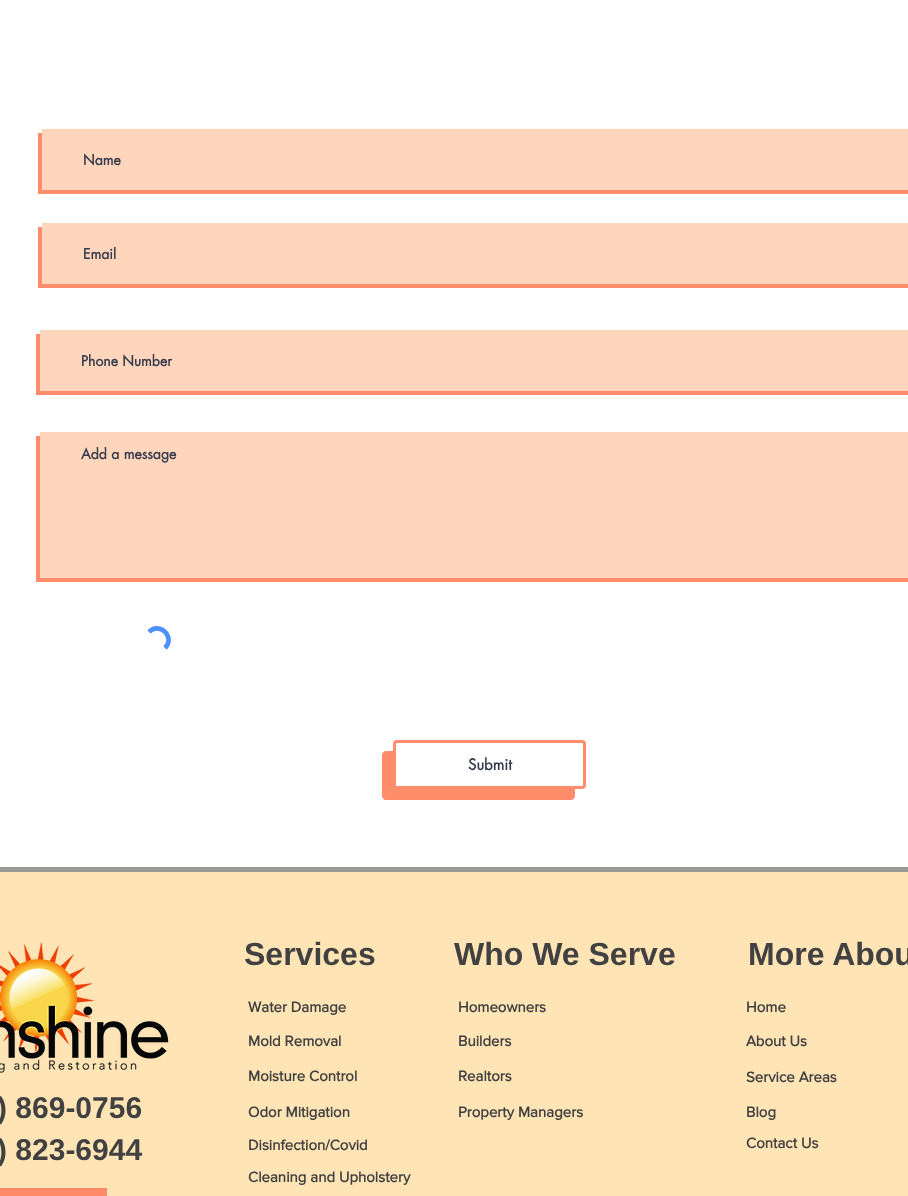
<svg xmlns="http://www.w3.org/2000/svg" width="908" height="1196">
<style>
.a{font:bold 14px futura;fill:#373b4d}
.b{font:bold 15px futura;fill:#373b4d}
.c{font:bold 32px Liberation Sans;fill:#414141}
.d{font:bold 15px 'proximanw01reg';fill:#414141}
.e{font:bold 30px Liberation Sans;fill:#414141}
</style>
<rect width="100%" height="100%" fill="#fff"/>
<path fill="#ff8c6b" d="M38 133v61h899v-4h-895v-57z"/>
<path fill="#ffd5bb" d="M42 129h866v61H42z"/>
<path fill="#ff8c6b" d="M38 227v61h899v-4h-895v-57z"/>
<path fill="#ffd5bb" d="M42 223h866v61H42z"/>
<path fill="#ff8c6b" d="M36 334v61h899v-4h-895v-57z"/>
<path fill="#ffd5bb" d="M40 330h868v61H40z"/>
<path fill="#ff8c6b" d="M36 436v146h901v-4h-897v-142z"/>
<path fill="#ffd5bb" d="M40 432h868v146H40z"/>
<path fill="none" stroke="#4d90fe" stroke-width="4.6" d="M149 632c10.5-11 27 5.5 16 16"/>
<path fill="#ff8c6b" d="M386 751c-2 0-4 2-4 4v41c0 2 2 4 4 4h185c2 0 4-2 4-4v-7h-178c-2 0-4-2-4-4v-34z"/>
<rect fill="#fff" stroke="#ff8c6b" stroke-width="3" x="394.5" y="741.5" width="190" height="46" rx="2.5"/>
<path fill="#ffe4b5" d="M0 872h908v324H0z"/>
<path fill="#999997" d="M0 867h908v5H0z"/>
<image href="1.png" x="0" y="942" width="169" height="131"/>
<path fill="#ff8a6a" d="M0 1188h107v8H0z"/>
<text class="a" x="83" y="165">Name</text>
<text class="a" x="83" y="259">Email</text>
<text class="a" x="81" y="366">Phone Number</text>
<text class="a" x="81" y="459">Add a message</text>
<text class="b" x="468" y="770">Submit</text>
<text class="c" x="244" y="965">Services</text>
<text class="c" x="454" y="965">Who We Serve</text>
<text class="c" x="748" y="965">More Abou</text>
<text class="d" x="248" y="1012">Water Damage</text>
<text class="d" x="458" y="1012">Homeowners</text>
<text class="d" x="746" y="1012">Home</text>
<text class="d" x="248" y="1046">Mold Removal</text>
<text class="d" x="458" y="1046">Builders</text>
<text class="d" x="746" y="1046">About Us</text>
<text class="d" x="248" y="1081">Moisture Control</text>
<text class="d" x="458" y="1081">Realtors</text>
<text class="d" x="746" y="1082">Service Areas</text>
<text class="e" x="-3" y="1118">) 869-0756</text>
<text class="e" x="-3" y="1160">) 823-6944</text>
<text class="d" x="248" y="1117">Odor Mitigation</text>
<text class="d" x="458" y="1117">Property Managers</text>
<text class="d" x="746" y="1117">Blog</text>
<text class="d" x="248" y="1150">Disinfection/Covid</text>
<text class="d" x="746" y="1148">Contact Us</text>
<text class="d" x="248" y="1182">Cleaning and Upholstery</text>
</svg>
